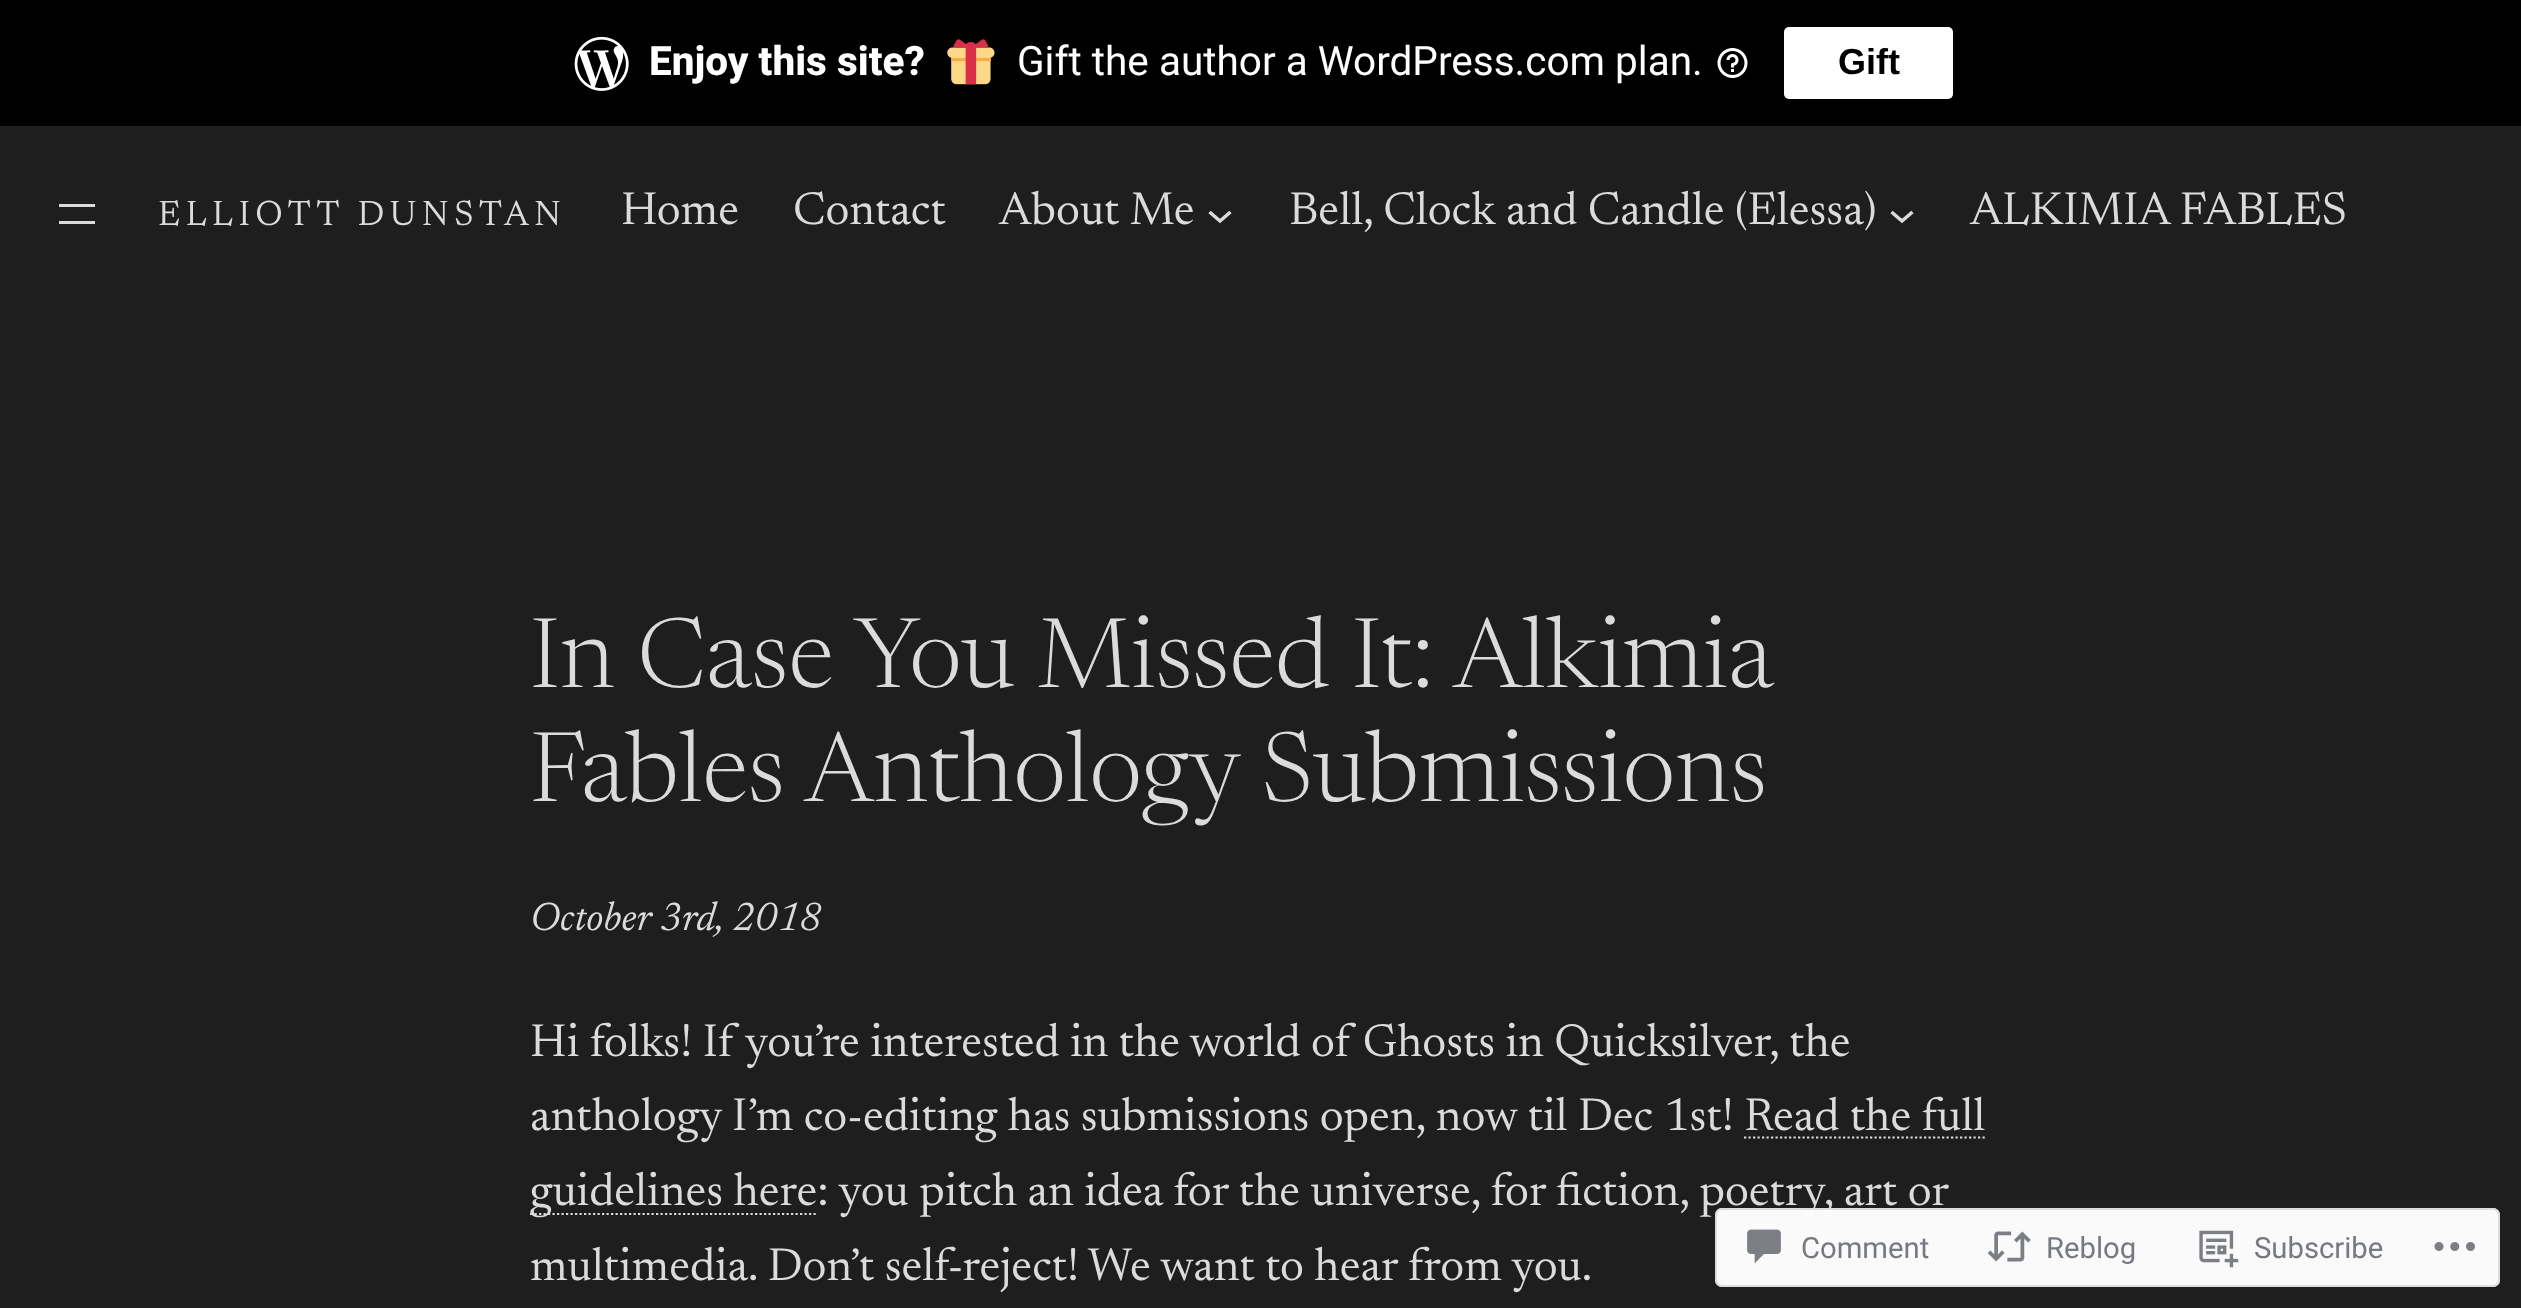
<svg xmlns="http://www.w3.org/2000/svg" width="2521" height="1308">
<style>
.a{font:800 40.5px Roboto;fill:#fff}
.b{font:40.5px Roboto;fill:#fff}
.c{font:bold 36px Liberation Sans;fill:#000}
.d{font:36px Newsreader;letter-spacing:5.4px;fill:#dbdbdb}
.e{font:46.8px 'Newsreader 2';fill:#dbdbdb}
.f{font:300 99px Newsreader;fill:#dbdbdb}
.g{font:italic 40.5px Newsreader;fill:#dbdbdb}
.h{font:29.25px Roboto;fill:#767a80}
</style>
<rect width="100%" height="100%" fill="#1e1e1e"/>
<path fill="#000" d="M0 0h2521v126H0z"/>
<image href="1.png" x="574" y="36" width="55" height="55"/>
<image href="2.png" x="947" y="39" width="48" height="46"/>
<image href="3.png" x="1717" y="48" width="31" height="30"/>
<rect fill="#fff" x="1784" y="27" width="169" height="72" rx="5"/>
<path fill="#dbdbdb" d="M59 204h36v3H59z"/>
<path fill="#dbdbdb" d="M59 221h36v3H59z"/>
<path fill="none" stroke="#dbdbdb" stroke-width="3.5" d="M1209.5 212l10.5 9l10.5-9"/>
<path fill="none" stroke="#dbdbdb" stroke-width="3.5" d="M1891.5 212l10.5 9l10.5-9"/>
<path fill="none" stroke="#dbdbdb" stroke-width="2.2" stroke-dasharray="2.25 2.25" d="M1744 1137.5h241"/>
<path fill="none" stroke="#dbdbdb" stroke-width="2.2" stroke-dasharray="2.25 2.25" d="M530 1214h287"/>
<text class="a" x="649" y="75">Enjoy this site?</text>
<text class="b" x="1017" y="75">Gift the author a WordPress.com plan.</text>
<text class="c" x="1838" y="74">Gift</text>
<text class="d" x="158" y="225">ELLIOTT DUNSTAN</text>
<text class="e" x="621" y="224">Home</text>
<text class="e" x="793" y="224">Contact</text>
<text class="e" x="999" y="224">About Me</text>
<text class="e" x="1289" y="224">Bell, Clock and Candle (Elessa)</text>
<text class="e" x="1970" y="224">ALKIMIA FABLES</text>
<text class="f" x="530" y="687" word-spacing="-0.25">In Case You Missed It: Alkimia</text>
<text class="f" x="530" y="801">Fables Anthology Submissions</text>
<text class="g" x="530" y="930">October 3rd, 2018</text>
<text class="e" x="530" y="1056">Hi folks! If you’re interested in the world of Ghosts in Quicksilver, the</text>
<text class="e" x="530" y="1130">anthology I’m co-editing has submissions open, now til Dec 1st! Read the full</text>
<text class="e" x="530" y="1205">guidelines here: you pitch an idea for the universe, for fiction, poetry, art or</text>
<text class="e" x="530" y="1280">multimedia. Don’t self-reject! We want to hear from you.</text>
<rect fill="#fffffffa" x="1715" y="1208" width="785" height="79" rx="7"/>
<rect fill="none" stroke="#dcdcdefa" stroke-width="2" x="1716" y="1209" width="783" height="77" rx="6"/>
<image href="4.png" x="1747" y="1229" width="34" height="35"/>
<text class="h" x="1801" y="1258">Comment</text>
<image href="5.png" x="1987" y="1231" width="44" height="31"/>
<text class="h" x="2046" y="1258">Reblog</text>
<image href="6.png" x="2199" y="1230" width="40" height="38"/>
<text class="h" x="2254" y="1258">Subscribe</text>
<image href="7.png" x="2434" y="1242" width="41" height="9"/>
</svg>
